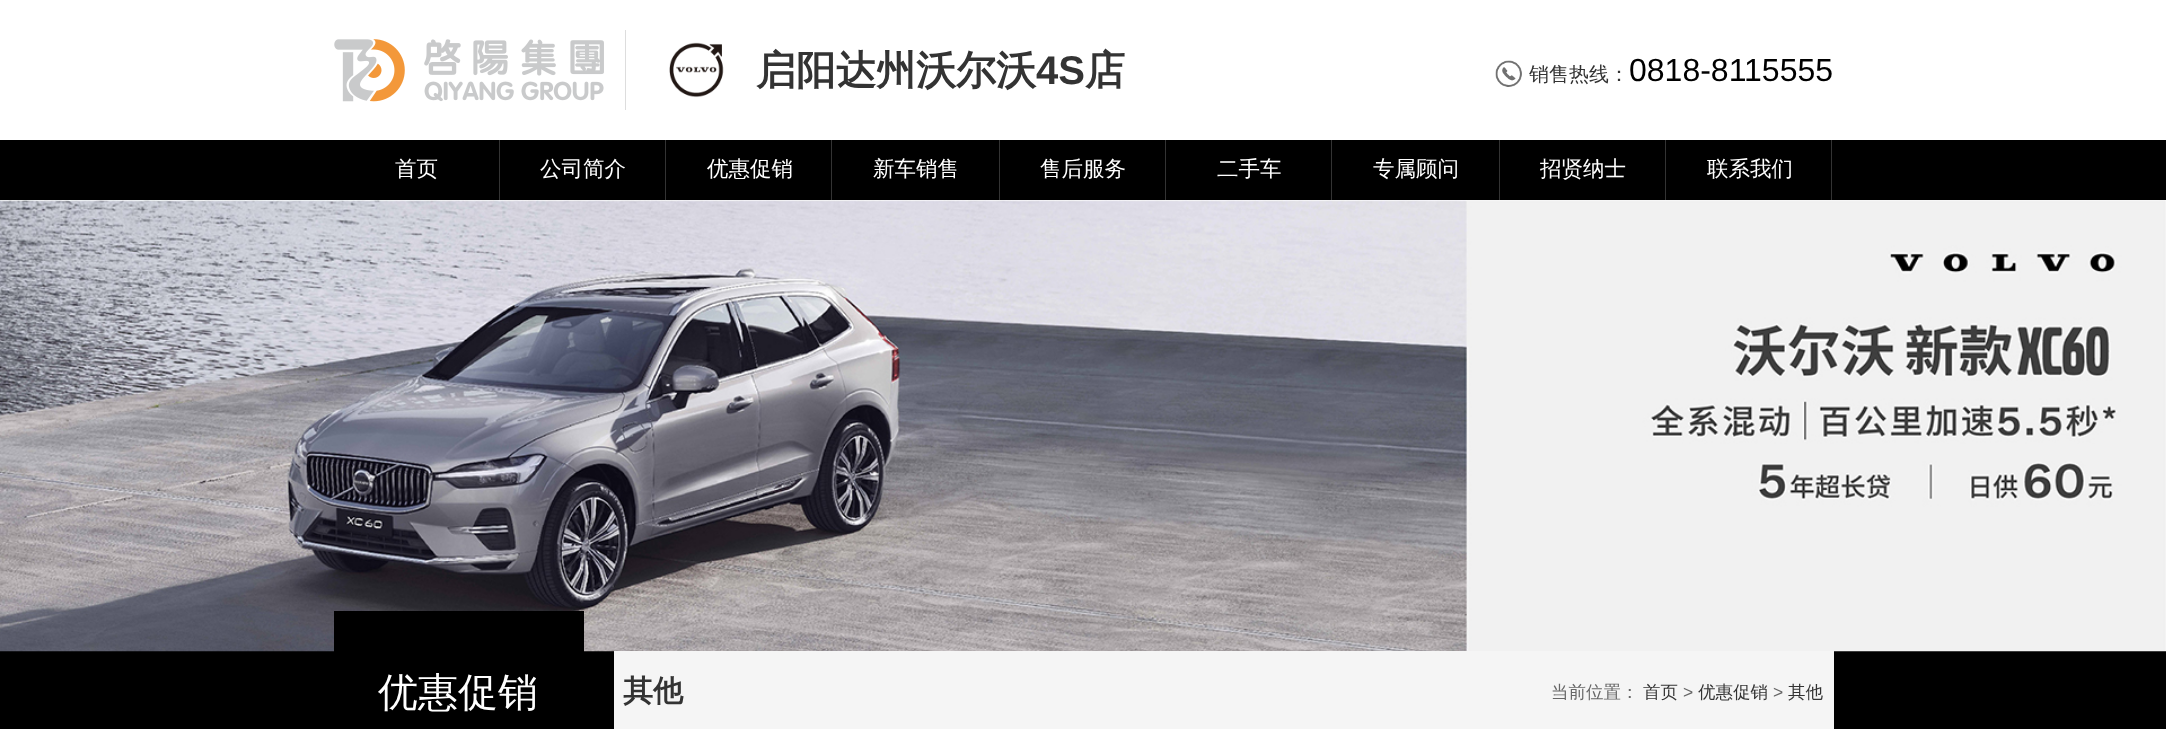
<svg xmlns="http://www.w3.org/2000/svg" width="2166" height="729">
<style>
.a{font:bold 40px WenQuanYi Zen Hei;fill:#333}
.b{font:bold 40px Liberation Sans;fill:#333}
.c{font:500 20px WenQuanYi Zen Hei;fill:#333}
.d{font:32px Liberation Sans;fill:#000}
.e{font:500 21.5px WenQuanYi Zen Hei;fill:#fff}
.f{font:500 40px WenQuanYi Zen Hei;fill:#fff}
.g{font:bold 30px WenQuanYi Zen Hei;fill:#333}
.h{font:500 17.5px WenQuanYi Zen Hei;fill:#666}
.i{font:500 17.5px WenQuanYi Zen Hei;fill:#333}
.j{font:17.5px Liberation Sans;fill:#666}
</style>
<rect width="100%" height="100%" fill="#000"/>
<path fill="#fff" d="M0 0h2166v140H0z"/>
<image href="1.png" x="334" y="39" width="270" height="63"/>
<path fill="#ddd" d="M625 30h1v80H625z"/>
<image href="2.png" x="669" y="42" width="55" height="56"/>
<image href="3.png" x="1495" y="60" width="27" height="27"/>
<path fill="#333" d="M499 140h1v60H499z"/>
<path fill="#333" d="M665 140h1v60H665z"/>
<path fill="#333" d="M831 140h1v60H831z"/>
<path fill="#333" d="M999 140h1v60H999z"/>
<path fill="#333" d="M1165 140h1v60H1165z"/>
<path fill="#333" d="M1331 140h1v60H1331z"/>
<path fill="#333" d="M1499 140h1v60H1499z"/>
<path fill="#333" d="M1665 140h1v60H1665z"/>
<path fill="#333" d="M1831 140h1v60H1831z"/>
<image href="4.png" x="0" y="200" width="2166" height="452"/>
<path fill="#000" d="M334 611h250v41H334z"/>
<path fill="#f5f5f5" d="M614 651h1220v78H614z"/>
<text class="a" x="756" y="84">启阳达州沃尔沃</text>
<text class="b" x="1036" y="84">4S</text>
<text class="a" x="1085" y="84">店</text>
<text class="c" x="1529" y="81">销售热线：</text>
<text class="d" x="1629" y="81">0818-8115555</text>
<text class="e" x="395" y="176">首页</text>
<text class="e" x="540" y="176">公司简介</text>
<text class="e" x="707" y="176">优惠促销</text>
<text class="e" x="873" y="176">新车销售</text>
<text class="e" x="1040" y="176">售后服务</text>
<text class="e" x="1217" y="176">二手车</text>
<text class="e" x="1373" y="176">专属顾问</text>
<text class="e" x="1540" y="176">招贤纳士</text>
<text class="e" x="1707" y="176">联系我们</text>
<text class="f" x="378" y="706">优惠促销</text>
<text class="g" x="623" y="701">其他</text>
<text class="h" x="1551" y="698">当前位置：</text>
<text class="i" x="1643" y="698">首页</text>
<text class="j" x="1683" y="698">&gt;</text>
<text class="i" x="1698" y="698">优惠促销</text>
<text class="j" x="1773" y="698">&gt;</text>
<text class="i" x="1788" y="698">其他</text>
</svg>
